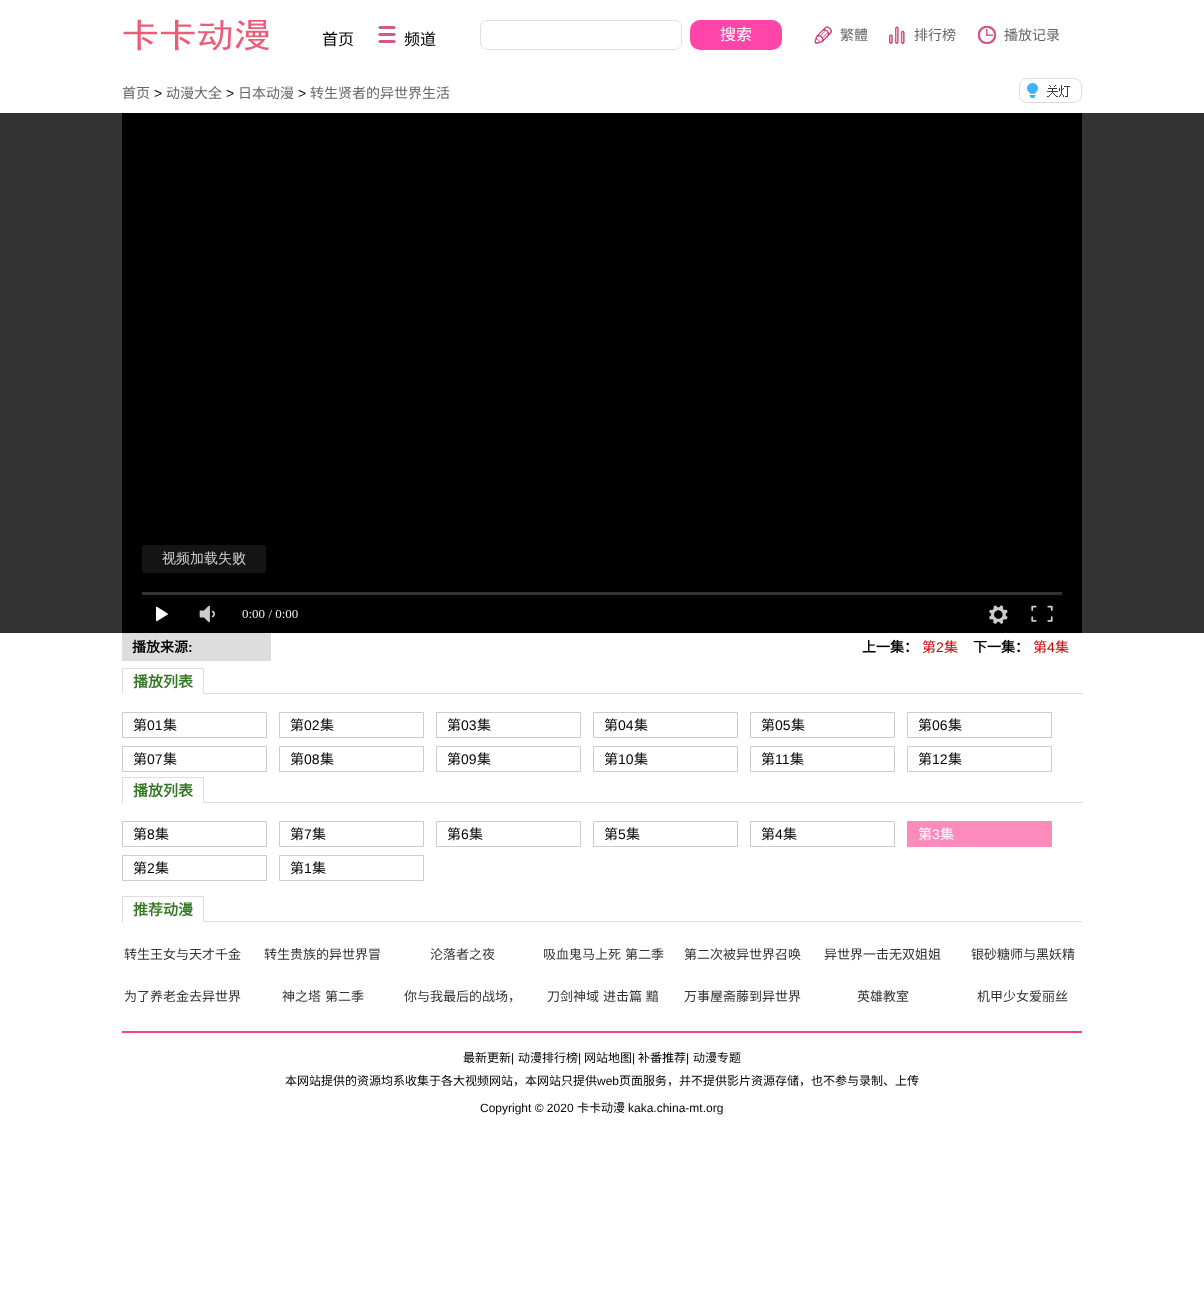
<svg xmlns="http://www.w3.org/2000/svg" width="1204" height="1313">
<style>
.a{font:16px Noto Sans CJK SC;fill:#000}
.b{font:16px Noto Sans CJK SC;fill:#fff}
.c{font:14px Noto Sans CJK SC;fill:#666}
.d{font:14px Liberation Sans;fill:#000}
.e{font:bold 14px Noto Sans CJK SC;fill:#000}
.f{font:bold 14px Liberation Sans;fill:#000}
.g{font:14px Noto Sans CJK SC;fill:#c00}
.h{font:14px Liberation Sans;fill:#c00}
.i{font:bold 15px Noto Sans CJK SC;fill:#372}
.j{font:14px Noto Sans CJK SC;fill:#000}
.k{font:14px Noto Sans CJK SC;fill:#fff}
.l{font:14px Liberation Sans;fill:#fff}
.m{font:13px Noto Sans CJK SC;fill:#333}
.n{font:12px Noto Sans CJK SC;fill:#000}
.o{font:12px Liberation Sans;fill:#000}
</style>
<rect width="100%" height="100%" fill="#fff"/>
<image href="1.png" x="123" y="19" width="146" height="32"/>
<image href="2.png" x="378" y="26" width="18" height="17"/>
<rect fill="none" stroke="#e0e0e0" x="480.5" y="20.5" width="201" height="29" rx="6.5"/>
<rect fill="#f4a" x="690" y="20" width="92" height="30" rx="10"/>
<image href="3.png" x="814" y="26" width="18" height="18"/>
<image href="4.png" x="889" y="26" width="16" height="18"/>
<image href="5.png" x="978" y="26" width="18" height="18"/>
<rect fill="none" stroke="#ddd" x="1019.5" y="78.5" width="62" height="24" rx="7.5"/>
<image href="6.png" x="1027" y="83" width="43" height="15"/>
<path fill="#333" d="M0 113h1204v520H0z"/>
<path fill="#000" d="M122 113h960v520H122z"/>
<image href="7.png" x="142" y="545" width="920" height="79"/>
<path fill="#ddd" d="M122 633h149v28H122z"/>
<path fill="#ddd" d="M204 693h878v1H204z"/>
<path fill="#ddd" d="M122 668h82v1H122z"/>
<path fill="#ddd" d="M203 668h1v26H203z"/>
<path fill="#ddd" d="M122 668h1v26H122z"/>
<path fill="none" stroke="#ccc" d="M122.5 712.5h144v25H122.5z"/>
<path fill="none" stroke="#ccc" d="M279.5 712.5h144v25H279.5z"/>
<path fill="none" stroke="#ccc" d="M436.5 712.5h144v25H436.5z"/>
<path fill="none" stroke="#ccc" d="M593.5 712.5h144v25H593.5z"/>
<path fill="none" stroke="#ccc" d="M750.5 712.5h144v25H750.5z"/>
<path fill="none" stroke="#ccc" d="M907.5 712.5h144v25H907.5z"/>
<path fill="none" stroke="#ccc" d="M122.5 746.5h144v25H122.5z"/>
<path fill="none" stroke="#ccc" d="M279.5 746.5h144v25H279.5z"/>
<path fill="none" stroke="#ccc" d="M436.5 746.5h144v25H436.5z"/>
<path fill="none" stroke="#ccc" d="M593.5 746.5h144v25H593.5z"/>
<path fill="none" stroke="#ccc" d="M750.5 746.5h144v25H750.5z"/>
<path fill="none" stroke="#ccc" d="M907.5 746.5h144v25H907.5z"/>
<path fill="#ddd" d="M204 802h878v1H204z"/>
<path fill="#ddd" d="M122 777h82v1H122z"/>
<path fill="#ddd" d="M203 777h1v26H203z"/>
<path fill="#ddd" d="M122 777h1v26H122z"/>
<path fill="none" stroke="#ccc" d="M122.5 821.5h144v25H122.5z"/>
<path fill="none" stroke="#ccc" d="M279.5 821.5h144v25H279.5z"/>
<path fill="none" stroke="#ccc" d="M436.5 821.5h144v25H436.5z"/>
<path fill="none" stroke="#ccc" d="M593.5 821.5h144v25H593.5z"/>
<path fill="none" stroke="#ccc" d="M750.5 821.5h144v25H750.5z"/>
<path fill="#fc8bbb" d="M907 821h145v26H907z"/>
<path fill="none" stroke="#ccc" d="M122.5 855.5h144v25H122.5z"/>
<path fill="none" stroke="#ccc" d="M279.5 855.5h144v25H279.5z"/>
<path fill="#ddd" d="M204 921h878v1H204z"/>
<path fill="#ddd" d="M122 896h82v1H122z"/>
<path fill="#ddd" d="M203 896h1v26H203z"/>
<path fill="#ddd" d="M122 896h1v26H122z"/>
<path fill="#fa3d8d" d="M122 1031h960v2H122z"/>
<text class="a" x="322" y="45">首页</text>
<text class="a" x="404" y="45">频道</text>
<text class="b" x="720" y="40">搜索</text>
<text class="c" x="840" y="40">繁體</text>
<text class="c" x="914" y="40">排行榜</text>
<text class="c" x="1004" y="40">播放记录</text>
<text class="c" x="122" y="98">首页</text>
<text class="d" x="154" y="98">&gt;</text>
<text class="c" x="166" y="98">动漫大全</text>
<text class="d" x="226" y="98">&gt;</text>
<text class="c" x="238" y="98">日本动漫</text>
<text class="d" x="298" y="98">&gt;</text>
<text class="c" x="310" y="98">转生贤者的异世界生活</text>
<text class="e" x="132" y="652">播放来源</text>
<text class="f" x="188" y="652">:</text>
<text class="e" x="862" y="652">上一集：</text>
<text class="g" x="922" y="652">第</text>
<text class="h" x="936" y="652">2</text>
<text class="g" x="944" y="652">集</text>
<text class="e" x="973" y="652">下一集：</text>
<text class="g" x="1033" y="652">第</text>
<text class="h" x="1047" y="652">4</text>
<text class="g" x="1055" y="652">集</text>
<text class="i" x="133" y="687">播放列表</text>
<text class="j" x="133" y="730">第</text>
<text class="d" x="147" y="730">01</text>
<text class="j" x="163" y="730">集</text>
<text class="j" x="290" y="730">第</text>
<text class="d" x="304" y="730">02</text>
<text class="j" x="320" y="730">集</text>
<text class="j" x="447" y="730">第</text>
<text class="d" x="461" y="730">03</text>
<text class="j" x="477" y="730">集</text>
<text class="j" x="604" y="730">第</text>
<text class="d" x="618" y="730">04</text>
<text class="j" x="634" y="730">集</text>
<text class="j" x="761" y="730">第</text>
<text class="d" x="775" y="730">05</text>
<text class="j" x="791" y="730">集</text>
<text class="j" x="918" y="730">第</text>
<text class="d" x="932" y="730">06</text>
<text class="j" x="948" y="730">集</text>
<text class="j" x="133" y="764">第</text>
<text class="d" x="147" y="764">07</text>
<text class="j" x="163" y="764">集</text>
<text class="j" x="290" y="764">第</text>
<text class="d" x="304" y="764">08</text>
<text class="j" x="320" y="764">集</text>
<text class="j" x="447" y="764">第</text>
<text class="d" x="461" y="764">09</text>
<text class="j" x="477" y="764">集</text>
<text class="j" x="604" y="764">第</text>
<text class="d" x="618" y="764">10</text>
<text class="j" x="634" y="764">集</text>
<text class="j" x="761" y="764">第</text>
<text class="d" x="775" y="764">11</text>
<text class="j" x="790" y="764">集</text>
<text class="j" x="918" y="764">第</text>
<text class="d" x="932" y="764">12</text>
<text class="j" x="948" y="764">集</text>
<text class="i" x="133" y="796">播放列表</text>
<text class="j" x="133" y="839">第</text>
<text class="d" x="147" y="839">8</text>
<text class="j" x="155" y="839">集</text>
<text class="j" x="290" y="839">第</text>
<text class="d" x="304" y="839">7</text>
<text class="j" x="312" y="839">集</text>
<text class="j" x="447" y="839">第</text>
<text class="d" x="461" y="839">6</text>
<text class="j" x="469" y="839">集</text>
<text class="j" x="604" y="839">第</text>
<text class="d" x="618" y="839">5</text>
<text class="j" x="626" y="839">集</text>
<text class="j" x="761" y="839">第</text>
<text class="d" x="775" y="839">4</text>
<text class="j" x="783" y="839">集</text>
<text class="k" x="918" y="839">第</text>
<text class="l" x="932" y="839">3</text>
<text class="k" x="940" y="839">集</text>
<text class="j" x="133" y="873">第</text>
<text class="d" x="147" y="873">2</text>
<text class="j" x="155" y="873">集</text>
<text class="j" x="290" y="873">第</text>
<text class="d" x="304" y="873">1</text>
<text class="j" x="312" y="873">集</text>
<text class="i" x="133" y="915">推荐动漫</text>
<text class="m" x="124" y="959">转生王女与天才千金</text>
<text class="m" x="264" y="959">转生贵族的异世界冒</text>
<text class="m" x="430" y="959">沦落者之夜</text>
<text class="m" x="543" y="959" word-spacing="1">吸血鬼马上死 第二季</text>
<text class="m" x="684" y="959">第二次被异世界召唤</text>
<text class="m" x="824" y="959">异世界一击无双姐姐</text>
<text class="m" x="971" y="959">银砂糖师与黑妖精</text>
<text class="m" x="124" y="1001">为了养老金去异世界</text>
<text class="m" x="282" y="1001" word-spacing="1">神之塔 第二季</text>
<text class="m" x="404" y="1001">你与我最后的战场，</text>
<text class="m" x="547" y="1001" word-spacing="1">刀剑神域 进击篇 黯</text>
<text class="m" x="684" y="1001">万事屋斋藤到异世界</text>
<text class="m" x="857" y="1001">英雄教室</text>
<text class="m" x="977" y="1001">机甲少女爱丽丝</text>
<text class="n" x="463" y="1062">最新更新</text>
<text class="o" x="511" y="1062">|</text>
<text class="n" x="518" y="1062">动漫排行榜</text>
<text class="o" x="578" y="1062">|</text>
<text class="n" x="584" y="1062">网站地图</text>
<text class="o" x="632" y="1062">|</text>
<text class="n" x="638" y="1062">补番推荐</text>
<text class="o" x="686" y="1062">|</text>
<text class="n" x="693" y="1062">动漫专题</text>
<text class="n" x="285" y="1085">本网站提供的资源均系收集于各大视频网站，本网站只提供</text>
<text class="o" x="597" y="1085">web</text>
<text class="n" x="619" y="1085">页面服务，并不提供影片资源存储，也不参与录制、上传</text>
<text class="o" x="480" y="1112">Copyright © 2020</text>
<text class="n" x="577" y="1112">卡卡动漫</text>
<text class="o" x="628" y="1112">kaka.china-mt.org</text>
</svg>
